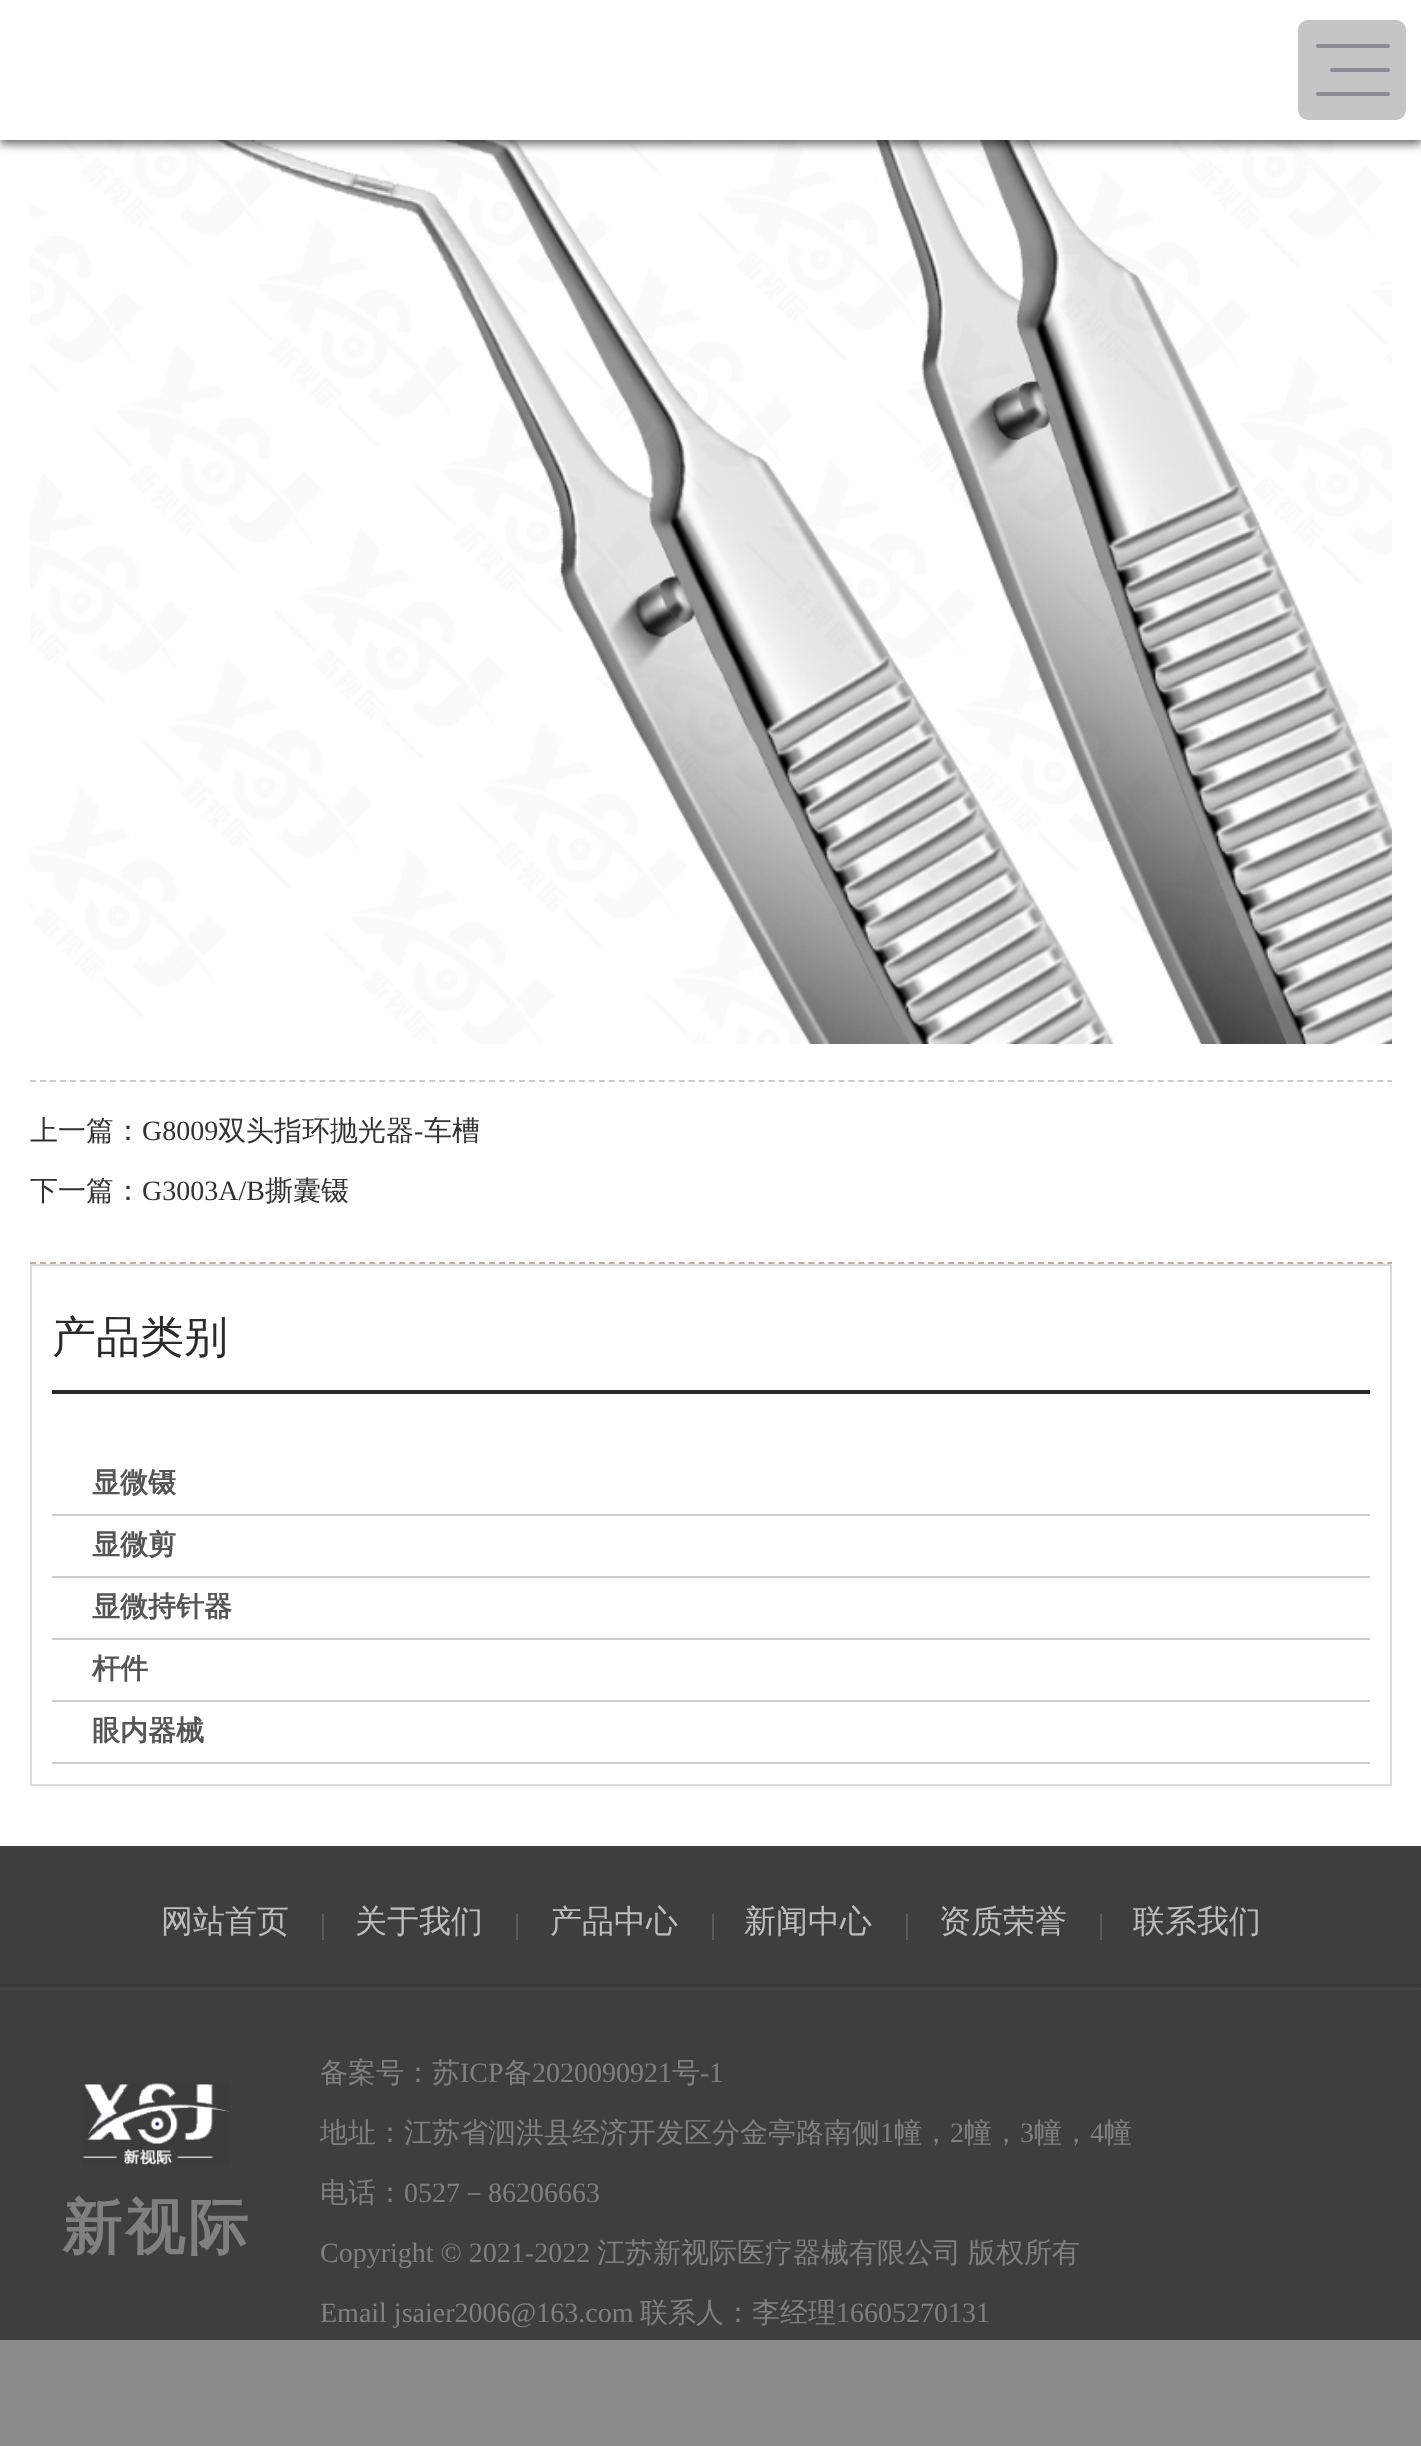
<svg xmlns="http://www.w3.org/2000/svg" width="1421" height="2446">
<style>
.a{font:500 28px WenQuanYi Zen Hei;fill:#333}
.b{font:28px Liberation Serif;fill:#333}
.c{font:500 44px WenQuanYi Zen Hei;fill:#2a2a2a}
.d{font:bold 28px WenQuanYi Zen Hei;fill:#555}
.e{font:500 32px WenQuanYi Zen Hei;fill:#bdbdbd}
.f{font:bold 60px WenQuanYi Zen Hei;letter-spacing:3px;fill:#808080}
.g{font:500 28px WenQuanYi Zen Hei;fill:#808080}
.h{font:28px Liberation Serif;fill:#808080}
</style>
<rect width="100%" height="100%" fill="#fff"/>
<image href="1.png" x="30" y="140" width="1362" height="904"/>
<path fill="#00000099" filter="blur(5px)" d="M0 4h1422v140H0z"/>
<path fill="#fff" d="M0 0h1421v140H0z"/>
<rect fill="#c5c5c5" x="1298" y="20" width="108" height="100" rx="10"/>
<rect fill="#8a8a93" x="1316" y="44" width="74" height="4" rx="2"/>
<rect fill="#8a8a93" x="1330" y="68" width="60" height="4" rx="2"/>
<rect fill="#8a8a93" x="1316" y="92" width="74" height="4" rx="2"/>
<path fill="none" stroke="#ccc" stroke-width="2" stroke-dasharray="6 3.98" d="M30 1081h1362"/>
<path fill="none" stroke="#c2a9a4" stroke-width="2" stroke-dasharray="6 3.98" d="M30 1263h1362"/>
<path fill="none" stroke="#dbdbdb" stroke-width="2" d="M31 1265h1360v520H31z"/>
<path fill="#2a2a2a" d="M52 1390h1318v4H52z"/>
<path fill="#ccc" d="M52 1514h1318v2H52z"/>
<path fill="#ccc" d="M52 1576h1318v2H52z"/>
<path fill="#ccc" d="M52 1638h1318v2H52z"/>
<path fill="#ccc" d="M52 1700h1318v2H52z"/>
<path fill="#ccc" d="M52 1762h1318v2H52z"/>
<path fill="#3e3e3e" d="M0 1846h1421v494H0z"/>
<image href="2.png" x="0" y="1984" width="1421" height="6"/>
<path fill="#5b5b5b" d="M322 1914h2v26H322z"/>
<path fill="#5b5b5b" d="M516 1914h2v26H516z"/>
<path fill="#5b5b5b" d="M712 1914h2v26H712z"/>
<path fill="#5b5b5b" d="M906 1914h2v26H906z"/>
<path fill="#5b5b5b" d="M1100 1914h2v26H1100z"/>
<image href="3.png" x="82" y="2083" width="148" height="82"/>
<path fill="#8a8a8a" d="M0 2340h1421v106H0z"/>
<text class="a" x="30" y="1140">上一篇：</text>
<text class="b" x="142" y="1140">G8009</text>
<text class="a" x="218" y="1140">双头指环抛光器</text>
<text class="b" x="414" y="1140">-</text>
<text class="a" x="424" y="1140">车槽</text>
<text class="a" x="30" y="1200">下一篇：</text>
<text class="b" x="142" y="1200">G3003A/B</text>
<text class="a" x="265" y="1200">撕囊镊</text>
<text class="c" x="52" y="1352">产品类别</text>
<text class="d" x="92" y="1492">显微镊</text>
<text class="d" x="92" y="1554">显微剪</text>
<text class="d" x="92" y="1616">显微持针器</text>
<text class="d" x="92" y="1678">杆件</text>
<text class="d" x="92" y="1740">眼内器械</text>
<text class="e" x="161" y="1932">网站首页</text>
<text class="e" x="355" y="1932">关于我们</text>
<text class="e" x="550" y="1932">产品中心</text>
<text class="e" x="744" y="1932">新闻中心</text>
<text class="e" x="939" y="1932">资质荣誉</text>
<text class="e" x="1133" y="1932">联系我们</text>
<text class="f" x="62" y="2248">新视际</text>
<text class="g" x="320" y="2082">备案号：苏</text>
<text class="h" x="460" y="2082">ICP</text>
<text class="g" x="504" y="2082">备</text>
<text class="h" x="532" y="2082">2020090921</text>
<text class="g" x="672" y="2082">号</text>
<text class="h" x="700" y="2082">-1</text>
<text class="g" x="320" y="2142">地址：江苏省泗洪县经济开发区分金亭路南侧</text>
<text class="h" x="880" y="2142">1</text>
<text class="g" x="894" y="2142">幢，</text>
<text class="h" x="950" y="2142">2</text>
<text class="g" x="964" y="2142">幢，</text>
<text class="h" x="1020" y="2142">3</text>
<text class="g" x="1034" y="2142">幢，</text>
<text class="h" x="1090" y="2142">4</text>
<text class="g" x="1104" y="2142">幢</text>
<text class="g" x="320" y="2202">电话：</text>
<text class="h" x="404" y="2202">0527</text>
<text class="g" x="460" y="2202">－</text>
<text class="h" x="488" y="2202">86206663</text>
<text class="h" x="320" y="2262">Copyright © 2021-2022</text>
<text class="g" x="597" y="2262">江苏新视际医疗器械有限公司</text>
<text class="g" x="968" y="2262">版权所有</text>
<text class="h" x="320" y="2322">Email jsaier2006@163.com</text>
<text class="g" x="640" y="2322">联系人：李经理</text>
<text class="h" x="836" y="2322">16605270131</text>
</svg>
